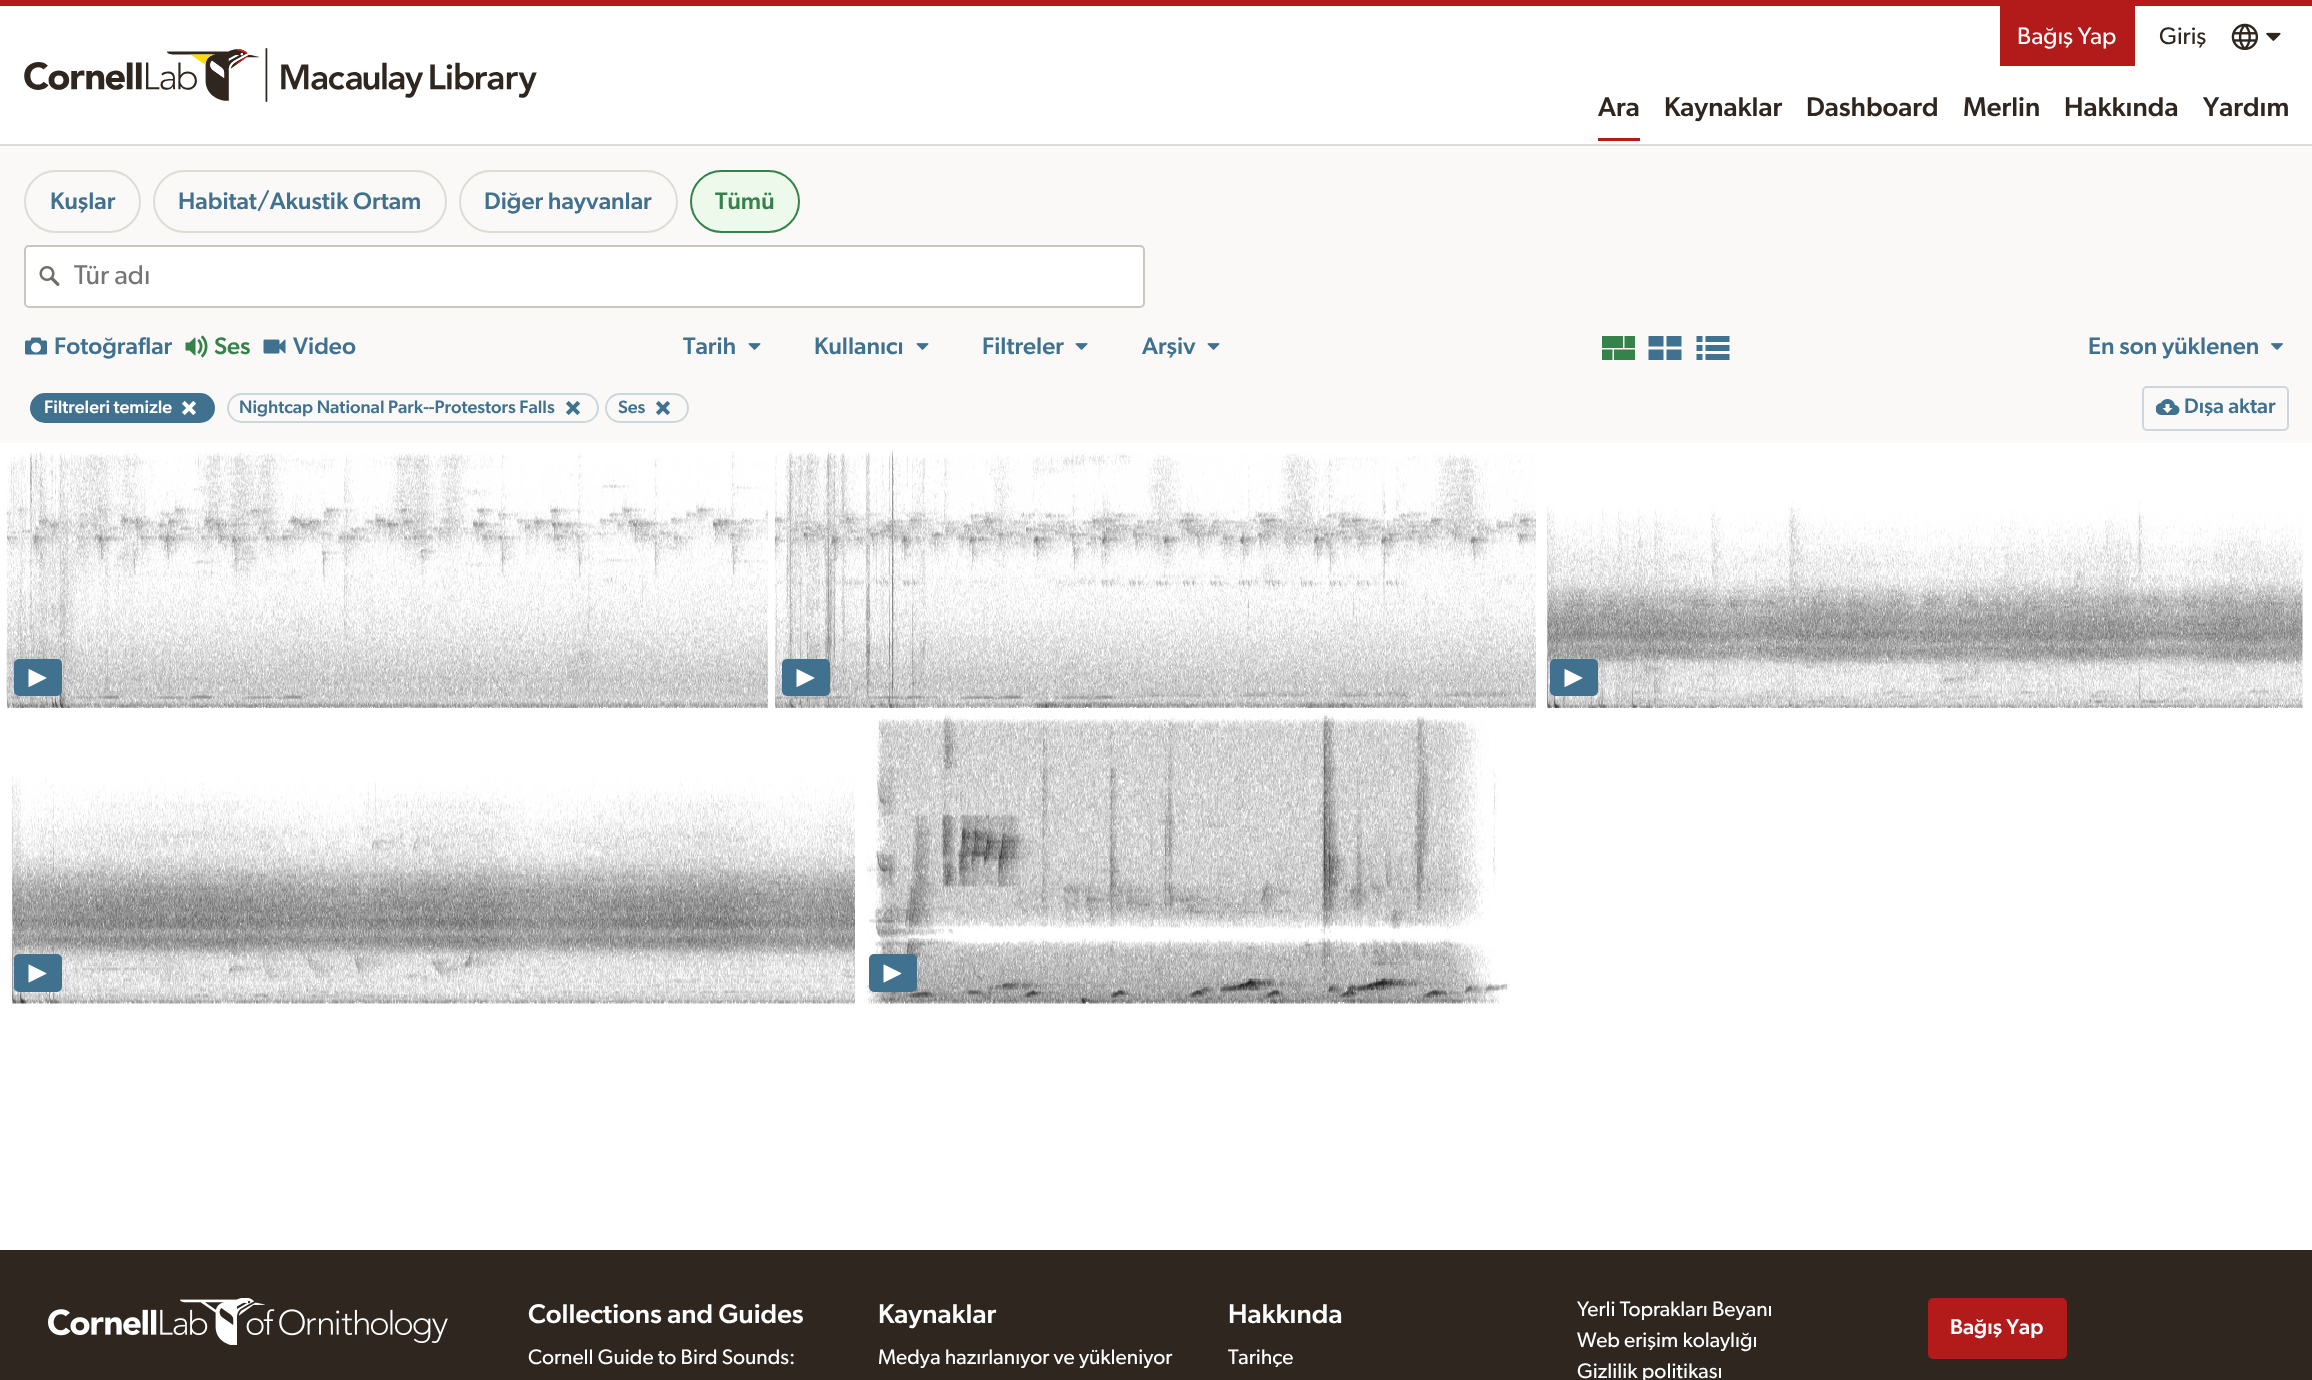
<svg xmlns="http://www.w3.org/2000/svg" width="2312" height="1380">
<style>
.a{font:24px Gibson;fill:#fff}
.b{font:24px Gibson;fill:#2e261f}
.c{font:500 27.1px Gibson;fill:#2e261f}
.d{font:500 24px Gibson;fill:#40718f}
.e{font:500 24px Gibson;fill:#36824b}
.f{font:27.1px Gibson;fill:#757575}
.g{font:500 18px Gibson;fill:#fff}
.h{font:500 18px Gibson;fill:#40718f}
.i{font:500 21.1px Gibson;fill:#40718f}
.j{font:500 27.1px Gibson;fill:#fff}
.k{font:21.1px Gibson;fill:#fff}
.l{font:500 21.5px Gibson;fill:#fff}
</style>
<defs>
<clipPath id="clip1"><path d="M74 263h1057v27H74z"/></clipPath>
</defs>
<rect width="100%" height="100%" fill="#fff"/>
<path fill="#b31b1b" d="M0 0h2312v6H0z"/>
<path fill="#dbdbd9" d="M0 144h2312v2H0z"/>
<image href="1.png" x="24" y="48" width="513" height="54"/>
<path fill="#b31b1b" d="M2000 6h135v60H2000z"/>
<image href="2.png" x="2231" y="23" width="28" height="28"/>
<image href="3.png" x="2266" y="32" width="15" height="9"/>
<path fill="#b31b1b" d="M1598 138h42v3H1598z"/>
<path fill="#faf9f7" d="M0 146h2312v297H0z"/>
<rect fill="none" stroke="#dddcd5" stroke-width="2" x="25" y="171" width="115" height="61" rx="30.5"/>
<rect fill="none" stroke="#dddcd5" stroke-width="2" x="154" y="171" width="292" height="61" rx="30.5"/>
<rect fill="none" stroke="#dddcd5" stroke-width="2" x="460" y="171" width="217" height="61" rx="30.5"/>
<rect fill="#ecf9eb" stroke="#36824b" stroke-width="2" x="691" y="171" width="108" height="61" rx="30.5"/>
<rect fill="#fff" stroke="#c8c7c0" stroke-width="2" x="25" y="246" width="1119" height="61" rx="4"/>
<image href="4.png" x="39" y="266" width="21" height="20"/>
<image href="5.png" x="25" y="337" width="22" height="18"/>
<image href="6.png" x="185" y="335" width="23" height="23"/>
<image href="7.png" x="263" y="339" width="23" height="15"/>
<image href="8.png" x="748" y="343" width="13" height="7"/>
<image href="8.png" x="916" y="343" width="13" height="7"/>
<image href="8.png" x="1075" y="343" width="13" height="7"/>
<image href="8.png" x="1207" y="343" width="13" height="7"/>
<image href="9.png" x="1602" y="336" width="33" height="24"/>
<image href="10.png" x="1648" y="336" width="34" height="24"/>
<image href="11.png" x="1696" y="336" width="34" height="24"/>
<image href="12.png" x="2271" y="343" width="12" height="7"/>
<rect fill="#40718f" x="30" y="393" width="185" height="30" rx="15"/>
<image href="13.png" x="182" y="401" width="14" height="14"/>
<rect fill="none" stroke="#ccd7dd" stroke-width="2" x="228" y="394" width="370" height="28" rx="14"/>
<image href="14.png" x="566" y="401" width="14" height="14"/>
<rect fill="none" stroke="#ccd7dd" stroke-width="2" x="606" y="394" width="82" height="28" rx="14"/>
<image href="14.png" x="656" y="401" width="14" height="14"/>
<rect fill="none" stroke="#ccd7dd" stroke-width="2" x="2143" y="387" width="145" height="43" rx="4"/>
<image href="15.png" x="2156" y="399" width="24" height="16"/>
<image href="16.png" x="6" y="452" width="762" height="256"/>
<rect fill="#40718f" x="14" y="659" width="48" height="37" rx="5"/>
<image href="17.png" x="28" y="669" width="19" height="18"/>
<image href="18.png" x="774" y="449" width="762" height="259"/>
<rect fill="#40718f" x="782" y="659" width="48" height="37" rx="5"/>
<image href="17.png" x="796" y="669" width="19" height="18"/>
<image href="19.png" x="1545" y="499" width="758" height="209"/>
<rect fill="#40718f" x="1550" y="659" width="48" height="37" rx="5"/>
<image href="17.png" x="1564" y="669" width="19" height="18"/>
<image href="20.png" x="10" y="776" width="845" height="228"/>
<rect fill="#40718f" x="14" y="954" width="48" height="38" rx="5"/>
<image href="21.png" x="28" y="964" width="19" height="19"/>
<image href="22.png" x="865" y="713" width="645" height="291"/>
<rect fill="#40718f" x="869" y="954" width="48" height="38" rx="5"/>
<image href="21.png" x="883" y="964" width="19" height="19"/>
<path fill="#2e261f" d="M0 1250h2312v130H0z"/>
<image href="23.png" x="48" y="1298" width="400" height="47"/>
<rect fill="#b31b1b" x="1928" y="1298" width="139" height="61" rx="5"/>
<text class="a" x="2017" y="44">Bağış Yap</text>
<text class="b" x="2159" y="44">Giriş</text>
<text class="c" x="1598" y="116">Ara</text>
<text class="c" x="1664" y="116">Kaynaklar</text>
<text class="c" x="1806" y="116">Dashboard</text>
<text class="c" x="1963" y="116">Merlin</text>
<text class="c" x="2064" y="116">Hakkında</text>
<text class="c" x="2203" y="116">Yardım</text>
<text class="d" x="50" y="209">Kuşlar</text>
<text class="d" x="178" y="209">Habitat/Akustik Ortam</text>
<text class="d" x="484" y="209">Diğer hayvanlar</text>
<text class="e" x="715" y="209">Tümü</text>
<g clip-path="url(#clip1)">
<text class="f" x="74" y="284">Tür adı</text>
</g>
<text class="d" x="54" y="354">Fotoğraflar</text>
<text class="e" x="214" y="354">Ses</text>
<text class="d" x="293" y="354">Video</text>
<text class="d" x="683" y="354">Tarih</text>
<text class="d" x="814" y="354">Kullanıcı</text>
<text class="d" x="982" y="354">Filtreler</text>
<text class="d" x="1142" y="354">Arşiv</text>
<text class="d" x="2088" y="354">En son yüklenen</text>
<text class="g" x="44" y="413">Filtreleri temizle</text>
<text class="h" x="239" y="413">Nightcap National Park--Protestors Falls</text>
<text class="h" x="618" y="413">Ses</text>
<text class="i" x="2184" y="413">Dışa aktar</text>
<text class="j" x="528" y="1323">Collections and Guides</text>
<text class="k" x="528" y="1364">Cornell Guide to Bird Sounds:</text>
<text class="j" x="878" y="1323">Kaynaklar</text>
<text class="k" x="878" y="1364">Medya hazırlanıyor ve yükleniyor</text>
<text class="j" x="1228" y="1323">Hakkında</text>
<text class="k" x="1228" y="1364">Tarihçe</text>
<text class="k" x="1577" y="1316">Yerli Toprakları Beyanı</text>
<text class="k" x="1577" y="1347">Web erişim kolaylığı</text>
<text class="k" x="1577" y="1378">Gizlilik politikası</text>
<text class="l" x="1950" y="1334">Bağış Yap</text>
</svg>
